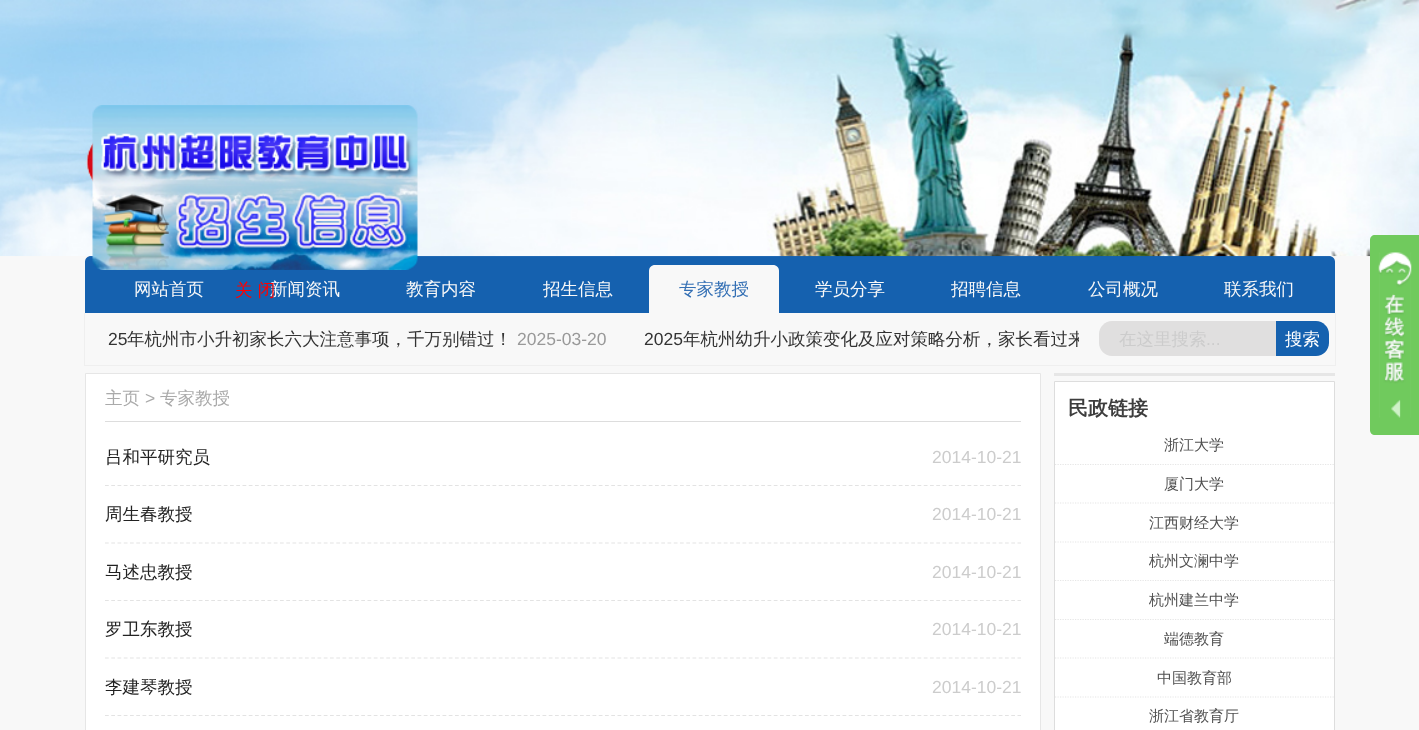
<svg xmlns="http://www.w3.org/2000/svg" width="1419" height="730">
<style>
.a{font:500 17.5px WenQuanYi Zen Hei;fill:#f8f8f8}
.b{font:500 17.5px WenQuanYi Zen Hei;fill:#336fb4}
.c{font:17.5px Liberation Sans;fill:#333}
.d{font:500 17.5px WenQuanYi Zen Hei;fill:#333}
.e{font:17.5px Liberation Sans;fill:#999}
.f{font:500 17.5px WenQuanYi Zen Hei;fill:#ccc}
.g{font:17.5px Liberation Sans;fill:#ccc}
.h{font:500 17.5px WenQuanYi Zen Hei;fill:#fff}
.i{font:500 17.5px WenQuanYi Zen Hei;fill:#f00}
.j{font:500 17.5px WenQuanYi Zen Hei;fill:#aaa}
.k{font:17.5px Liberation Sans;fill:#aaa}
.l{font:500 17.5px WenQuanYi Zen Hei;fill:#222}
.m{font:bold 20px WenQuanYi Zen Hei;fill:#3d3d3d}
.n{font:500 15px WenQuanYi Zen Hei;fill:#4f4f4f}
</style>
<defs>
<clipPath id="clip1"><path d="M104 313h975v52H104z"/></clipPath>
</defs>
<rect width="100%" height="100%" fill="#f8f8f8"/>
<path fill="#1561af" d="M91 256h1238c3.5 0 6 2.5 6 6v51h-1250v-51c0-3.5 2.5-6 6-6z"/>
<image href="1.png" x="0" y="0" width="1419" height="257"/>
<path fill="#f8f8f8" d="M655 265h118c3.5 0 6 2.5 6 6v42h-130v-42c0-3.5 2.5-6 6-6z"/>
<path fill="#efefef" d="M1335 313h1v53H1335z"/>
<path fill="#efefef" d="M84 365h1252v1H84z"/>
<path fill="#efefef" d="M84 313h1v53H84z"/>
<path fill="#e0dfdf" d="M1112 321h164v35h-164c-7 0-13-6-13-13v-9c0-7 6-13 13-13z"/>
<path fill="#1561af" d="M1276 321h40c7 0 13 6 13 13v9c0 7-6 13-13 13h-40z"/>
<path fill="#70ca5d" d="M1375 235h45v200h-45c-3 0-5-2-5-5v-190c0-3 2-5 5-5z"/>
<image href="2.png" x="1378" y="252" width="34" height="166"/>
<image href="3.png" x="92" y="105" width="326" height="165"/>
<path fill="#fff" stroke="#e6e6e6" d="M85.5 373.5h955v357H85.5z"/>
<path fill="#ddd" d="M105 421h916v1H105z"/>
<path fill="none" stroke="#e3e3e3" stroke-width="1.2" stroke-dasharray="3.75 2.5" d="M105 485.5h916"/>
<path fill="none" stroke="#e3e3e3" stroke-width="1.2" stroke-dasharray="3.75 2.5" d="M105 543h916"/>
<path fill="none" stroke="#e3e3e3" stroke-width="1.2" stroke-dasharray="3.75 2.5" d="M105 600.5h916"/>
<path fill="none" stroke="#e3e3e3" stroke-width="1.2" stroke-dasharray="3.75 2.5" d="M105 658h916"/>
<path fill="none" stroke="#e3e3e3" stroke-width="1.2" stroke-dasharray="3.75 2.5" d="M105 715.5h916"/>
<path fill="#e6e6e6" d="M1054 373h281v3H1054z"/>
<path fill="#fff" stroke="#ddd" d="M1054.5 381.5h280v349H1054.5z"/>
<path fill="none" stroke="#e6e6e6" stroke-width="1.2" stroke-dasharray="1.25 1.25" d="M1055 464.5h279"/>
<path fill="none" stroke="#e6e6e6" stroke-width="1.2" stroke-dasharray="1.25 1.25" d="M1055 503h279"/>
<path fill="none" stroke="#e6e6e6" stroke-width="1.2" stroke-dasharray="1.25 1.25" d="M1055 542h279"/>
<path fill="none" stroke="#e6e6e6" stroke-width="1.2" stroke-dasharray="1.25 1.25" d="M1055 580.5h279"/>
<path fill="none" stroke="#e6e6e6" stroke-width="1.2" stroke-dasharray="1.25 1.25" d="M1055 619.5h279"/>
<path fill="none" stroke="#e6e6e6" stroke-width="1.2" stroke-dasharray="1.25 1.25" d="M1055 658h279"/>
<path fill="none" stroke="#e6e6e6" stroke-width="1.2" stroke-dasharray="1.25 1.25" d="M1055 697h279"/>
<text class="a" x="134" y="295">网站首页</text>
<text class="a" x="270" y="295">新闻资讯</text>
<text class="a" x="406" y="295">教育内容</text>
<text class="a" x="543" y="295">招生信息</text>
<text class="b" x="679" y="295">专家教授</text>
<text class="a" x="815" y="295">学员分享</text>
<text class="a" x="951" y="295">招聘信息</text>
<text class="a" x="1088" y="295">公司概况</text>
<text class="a" x="1224" y="295">联系我们</text>
<text class="c" x="108" y="345">25</text>
<text class="d" x="127" y="345">年杭州市小升初家长六大注意事项，千万别错过！</text>
<text class="e" x="517" y="345">2025-03-20</text>
<text class="c" x="644" y="345">2025</text>
<g clip-path="url(#clip1)">
<text class="d" x="683" y="345">年杭州幼升小政策变化及应对策略分析，家长看过来</text>
</g>
<text class="f" x="1119" y="345">在这里搜索</text>
<text class="g" x="1206" y="345">...</text>
<text class="h" x="1285" y="345">搜索</text>
<text class="i" x="235" y="296">关 闭</text>
<text class="j" x="105" y="404">主页</text>
<text class="k" x="145" y="404">&gt;</text>
<text class="j" x="160" y="404">专家教授</text>
<text class="l" x="105" y="463">吕和平研究员</text>
<text class="g" x="932" y="463">2014-10-21</text>
<text class="l" x="105" y="520">周生春教授</text>
<text class="g" x="932" y="520">2014-10-21</text>
<text class="l" x="105" y="578">马述忠教授</text>
<text class="g" x="932" y="578">2014-10-21</text>
<text class="l" x="105" y="635">罗卫东教授</text>
<text class="g" x="932" y="635">2014-10-21</text>
<text class="l" x="105" y="693">李建琴教授</text>
<text class="g" x="932" y="693">2014-10-21</text>
<text class="m" x="1068" y="415">民政链接</text>
<text class="n" x="1164" y="450">浙江大学</text>
<text class="n" x="1164" y="489">厦门大学</text>
<text class="n" x="1149" y="528">江西财经大学</text>
<text class="n" x="1149" y="566">杭州文澜中学</text>
<text class="n" x="1149" y="605">杭州建兰中学</text>
<text class="n" x="1164" y="644">端德教育</text>
<text class="n" x="1157" y="683">中国教育部</text>
<text class="n" x="1149" y="721">浙江省教育厅</text>
</svg>
